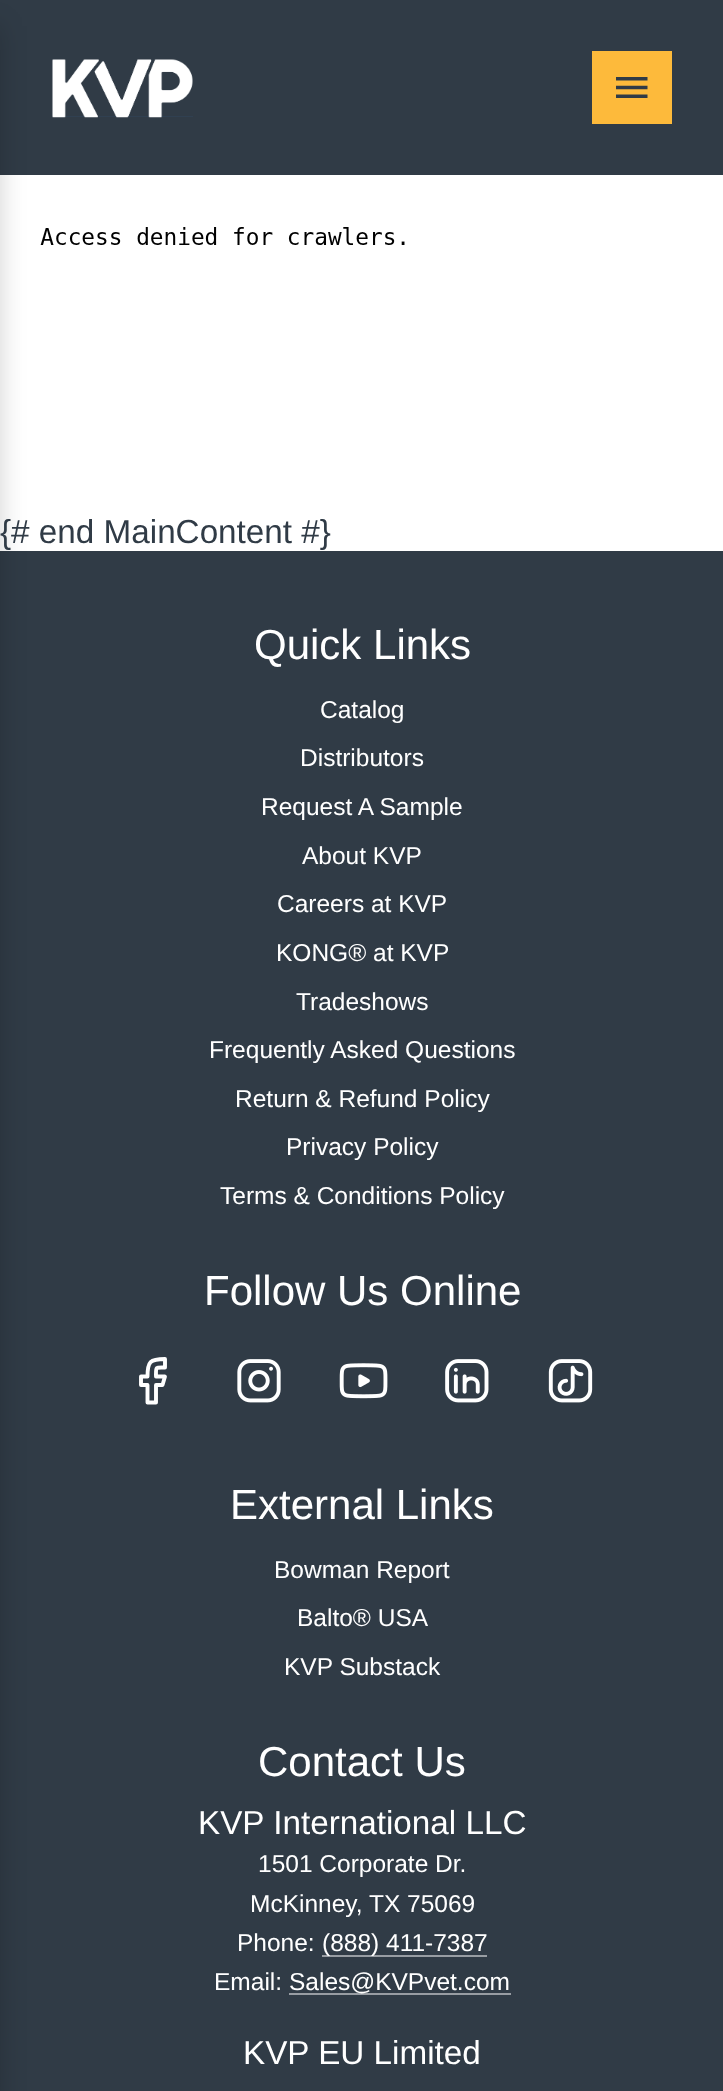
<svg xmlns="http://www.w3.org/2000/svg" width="723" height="2091">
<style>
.a{font:33.25px Liberation Sans;fill:#303b46}
.b{font:42px Liberation Sans;fill:#fff}
.c{font:24.5px Liberation Sans;fill:#fff}
.d{font:33.25px Liberation Sans;fill:#fff}
</style>
<rect width="100%" height="100%" fill="#fff"/>
<path fill="#303b46" d="M0 0h723v175H0z"/>
<path fill="#303b46" d="M0 551h723v1540H0z"/>
<path fill="#0000002e" filter="blur(13px)" d="M-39 26h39v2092H-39z"/>
<path fill="#fdba3b" d="M592 51h80v73H592z"/>
<image href="1.png" x="616" y="77" width="32" height="21"/>
<path fill="#304051" d="M53 116h140v1H53z"/>
<image href="2.png" x="52" y="59" width="141" height="59"/>
<image href="3.png" x="40" y="227" width="365" height="18"/>
<path fill="none" stroke="#fff" stroke-width="3.9" stroke-linecap="round" stroke-linejoin="round" d="M165 1359c-15 0-17.5 2.5-17.5 17.5h-6.5v8.5h6.5v17.5h8.5v-17.5h6.5l2.5-8.5h-9c0-10-1-9 9-9z"/>
<image href="4.png" x="237" y="1359" width="44" height="44"/>
<image href="5.png" x="339" y="1363" width="49" height="36"/>
<image href="6.png" x="445" y="1359" width="44" height="44"/>
<image href="7.png" x="548" y="1359" width="45" height="44"/>
<path fill="#989da3" d="M322 1955h165v2H322z"/>
<path fill="#989da3" d="M289 1993h222v2H289z"/>
<text class="a" x="0" y="543">{# end MainContent #}</text>
<text class="b" x="254" y="659">Quick Links</text>
<text class="c" x="320" y="718">Catalog</text>
<text class="c" x="300" y="766">Distributors</text>
<text class="c" x="261" y="815">Request A Sample</text>
<text class="c" x="302" y="864">About KVP</text>
<text class="c" x="277" y="912">Careers at KVP</text>
<text class="c" x="276" y="961">KONG® at KVP</text>
<text class="c" x="296" y="1010">Tradeshows</text>
<text class="c" x="209" y="1058">Frequently Asked Questions</text>
<text class="c" x="235" y="1107">Return &amp; Refund Policy</text>
<text class="c" x="286" y="1155">Privacy Policy</text>
<text class="c" x="220" y="1204">Terms &amp; Conditions Policy</text>
<text class="b" x="204" y="1305">Follow Us Online</text>
<text class="b" x="230" y="1519">External Links</text>
<text class="c" x="274" y="1578">Bowman Report</text>
<text class="c" x="297" y="1626">Balto® USA</text>
<text class="c" x="284" y="1675">KVP Substack</text>
<text class="b" x="258" y="1776">Contact Us</text>
<text class="d" x="198" y="1834">KVP International LLC</text>
<text class="c" x="258" y="1872">1501 Corporate Dr.</text>
<text class="c" x="250" y="1912">McKinney, TX 75069</text>
<text class="c" x="237" y="1951">Phone:</text>
<text class="c" x="322" y="1951">(888) 411-7387</text>
<text class="c" x="214" y="1990">Email:</text>
<text class="c" x="289" y="1990">Sales@KVPvet.com</text>
<text class="d" x="243" y="2064">KVP EU Limited</text>
</svg>
